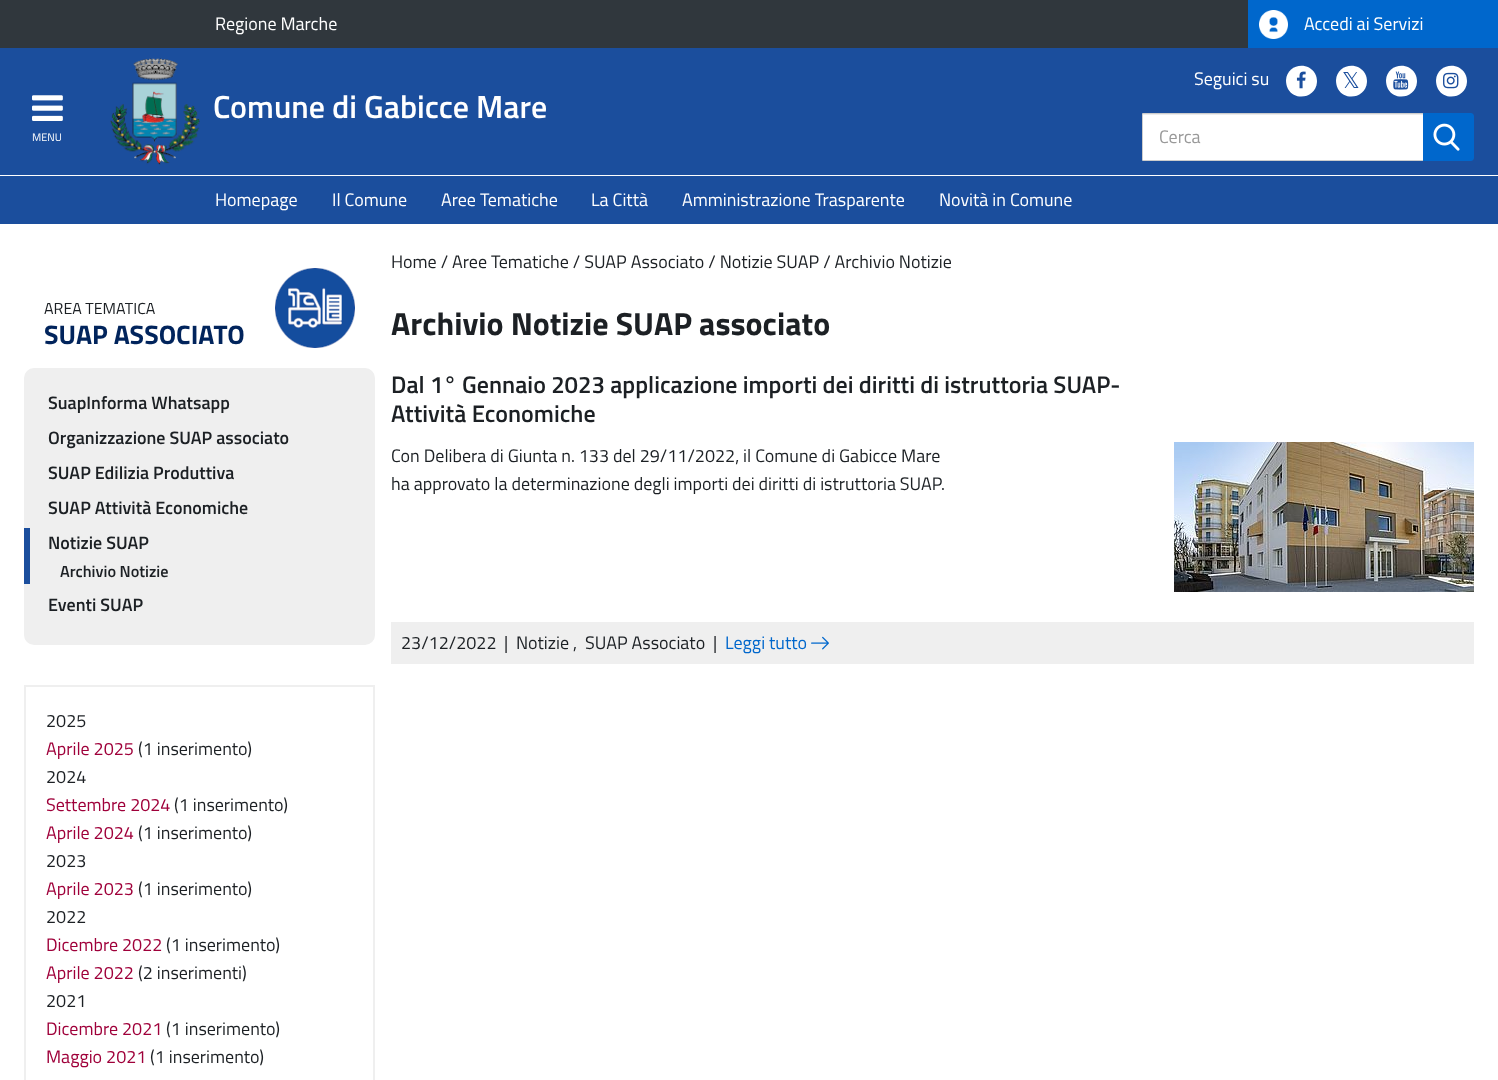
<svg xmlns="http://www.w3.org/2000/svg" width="1498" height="1080">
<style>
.a{font:18px Titillium Web;fill:#fff}
.b{font:11px Titillium Web;fill:#fff}
.c{font:600 32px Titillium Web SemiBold;fill:#fff}
.d{font:22px DejaVu Sans;fill:#1b4e9d}
.e{font:18px Titillium Web;fill:#999}
.f{font:16px Titillium Web;fill:#1c2024}
.g{font:bold 26.75px Titillium Web;fill:#01245c}
.h{font:600 18px Titillium Web SemiBold;fill:#1c2024}
.i{font:600 16.25px Titillium Web SemiBold;fill:#1c2024}
.j{font:18px Titillium Web;fill:#1c2024}
.k{font:18px Titillium Web;fill:#9f003a}
.l{font:bold 32px Titillium Web;fill:#1c2024}
.m{font:600 24px Titillium Web SemiBold;fill:#1c2024}
.n{font:18px Titillium Web;fill:#0067cc}
</style>
<rect width="100%" height="100%" fill="#fff"/>
<path fill="#1b4e9d" d="M0 48h1498v176H0z"/>
<path fill="#30373d" d="M0 0h1248v48H0z"/>
<path fill="#0067cc" d="M1248 0h250v48H1248z"/>
<image href="1.png" x="1259" y="10" width="29" height="29"/>
<image href="2.png" x="32" y="95" width="31" height="26"/>
<image href="3.png" x="110" y="58" width="90" height="107"/>
<path fill="#fff" d="M1315 73.5c1.5 2.5 2 5.5 2 8.5c-1 15.5-21.5 20-29 7c-1.5-3-2-6-2-9c1-15 21-19.5 29-6.5z"/>
<image href="4.png" x="1296" y="71" width="10" height="18"/>
<path fill="#fff" d="M1365 73.5c1.5 2.5 2 5.5 2 8.5c-1 15.5-21.5 20-29 7c-1.5-3-2-6-2-9c1-15 21-19.5 29-6.5z"/>
<path fill="#fff" d="M1415 73.5c1.5 2.5 2 5.5 2 8.5c-1 15.5-21.5 20-29 7c-1.5-3-2-6-2-9c1-15 21-19.5 29-6.5z"/>
<image href="5.png" x="1393" y="71" width="16" height="19"/>
<path fill="#fff" d="M1465 73.5c1.5 2.5 2 5.5 2 8.5c-1 15.5-21.5 20-29 7c-1.5-3-2-6-2-9c1-15 21-19.5 29-6.5z"/>
<image href="6.png" x="1443" y="72" width="16" height="17"/>
<path fill="#fff" d="M1143 115h280v45H1143z"/>
<path fill="#ececec" d="M1143 114h280v1H1143z"/>
<path fill="none" stroke="#ccc" d="M1142.5 113.5h281v47H1142.5z"/>
<path fill="#0067cc" d="M1423 113h48c1.5 0 3 1.5 3 3v42c0 1.5-1.5 3-3 3h-48z"/>
<image href="7.png" x="1433" y="123" width="27" height="28"/>
<path fill="#fff" d="M0 175h1498v1H0z"/>
<image href="8.png" x="275" y="268" width="80" height="80"/>
<rect fill="#efefef" x="24" y="368" width="351" height="277" rx="10"/>
<path fill="#1b4e9d" d="M24 528h6v56H24z"/>
<path fill="none" stroke="#efefef" stroke-width="2" d="M25 686h349v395H25z"/>
<image href="9.png" x="1174" y="442" width="300" height="150"/>
<path fill="#efefef" d="M391 622h1083v42H391z"/>
<image href="10.png" x="811" y="636" width="18" height="14"/>
<text class="a" x="215" y="30">Regione Marche</text>
<text class="a" x="1304" y="30">Accedi ai Servizi</text>
<text class="b" x="32" y="141">MENU</text>
<text class="c" x="213" y="118">Comune di Gabicce Mare</text>
<text class="a" x="1194" y="85">Seguici su</text>
<text class="d" x="1342" y="88">𝕏</text>
<text class="e" x="1159" y="143">Cerca</text>
<text class="a" x="215" y="206">Homepage</text>
<text class="a" x="332" y="206">Il Comune</text>
<text class="a" x="441" y="206">Aree Tematiche</text>
<text class="a" x="591" y="206">La Città</text>
<text class="a" x="682" y="206">Amministrazione Trasparente</text>
<text class="a" x="939" y="206">Novità in Comune</text>
<text class="f" x="44" y="314">AREA TEMATICA</text>
<text class="g" x="44" y="344">SUAP ASSOCIATO</text>
<text class="h" x="48" y="409">SuapInforma Whatsapp</text>
<text class="h" x="48" y="444">Organizzazione SUAP associato</text>
<text class="h" x="48" y="479">SUAP Edilizia Produttiva</text>
<text class="h" x="48" y="514">SUAP Attività Economiche</text>
<text class="h" x="48" y="549">Notizie SUAP</text>
<text class="i" x="60" y="577">Archivio Notizie</text>
<text class="h" x="48" y="611">Eventi SUAP</text>
<text class="j" x="46" y="727">2025</text>
<text class="k" x="46" y="755">Aprile 2025</text>
<text class="j" x="138" y="755">(1 inserimento)</text>
<text class="j" x="46" y="783">2024</text>
<text class="k" x="46" y="811">Settembre 2024</text>
<text class="j" x="174" y="811">(1 inserimento)</text>
<text class="k" x="46" y="839">Aprile 2024</text>
<text class="j" x="138" y="839">(1 inserimento)</text>
<text class="j" x="46" y="867">2023</text>
<text class="k" x="46" y="895">Aprile 2023</text>
<text class="j" x="138" y="895">(1 inserimento)</text>
<text class="j" x="46" y="923">2022</text>
<text class="k" x="46" y="951">Dicembre 2022</text>
<text class="j" x="166" y="951">(1 inserimento)</text>
<text class="k" x="46" y="979">Aprile 2022</text>
<text class="j" x="138" y="979">(2 inserimenti)</text>
<text class="j" x="46" y="1007">2021</text>
<text class="k" x="46" y="1035">Dicembre 2021</text>
<text class="j" x="166" y="1035">(1 inserimento)</text>
<text class="k" x="46" y="1063">Maggio 2021</text>
<text class="j" x="150" y="1063">(1 inserimento)</text>
<text class="j" x="391" y="268">Home / Aree Tematiche / SUAP Associato / Notizie SUAP / Archivio Notizie</text>
<text class="l" x="391" y="335">Archivio Notizie SUAP associato</text>
<text class="m" x="391" y="393">Dal 1° Gennaio 2023 applicazione importi dei diritti di istruttoria SUAP-</text>
<text class="m" x="391" y="422">Attività Economiche</text>
<text class="j" x="391" y="462">Con Delibera di Giunta n. 133 del 29/11/2022, il Comune di Gabicce Mare</text>
<text class="j" x="391" y="490">ha approvato la determinazione degli importi dei diritti di istruttoria SUAP.</text>
<text class="j" x="401" y="649">23/12/2022</text>
<text class="j" x="504" y="649">|</text>
<text class="j" x="516" y="649">Notizie ,</text>
<text class="j" x="585" y="649">SUAP Associato</text>
<text class="j" x="713" y="649">|</text>
<text class="n" x="725" y="649">Leggi tutto</text>
</svg>
